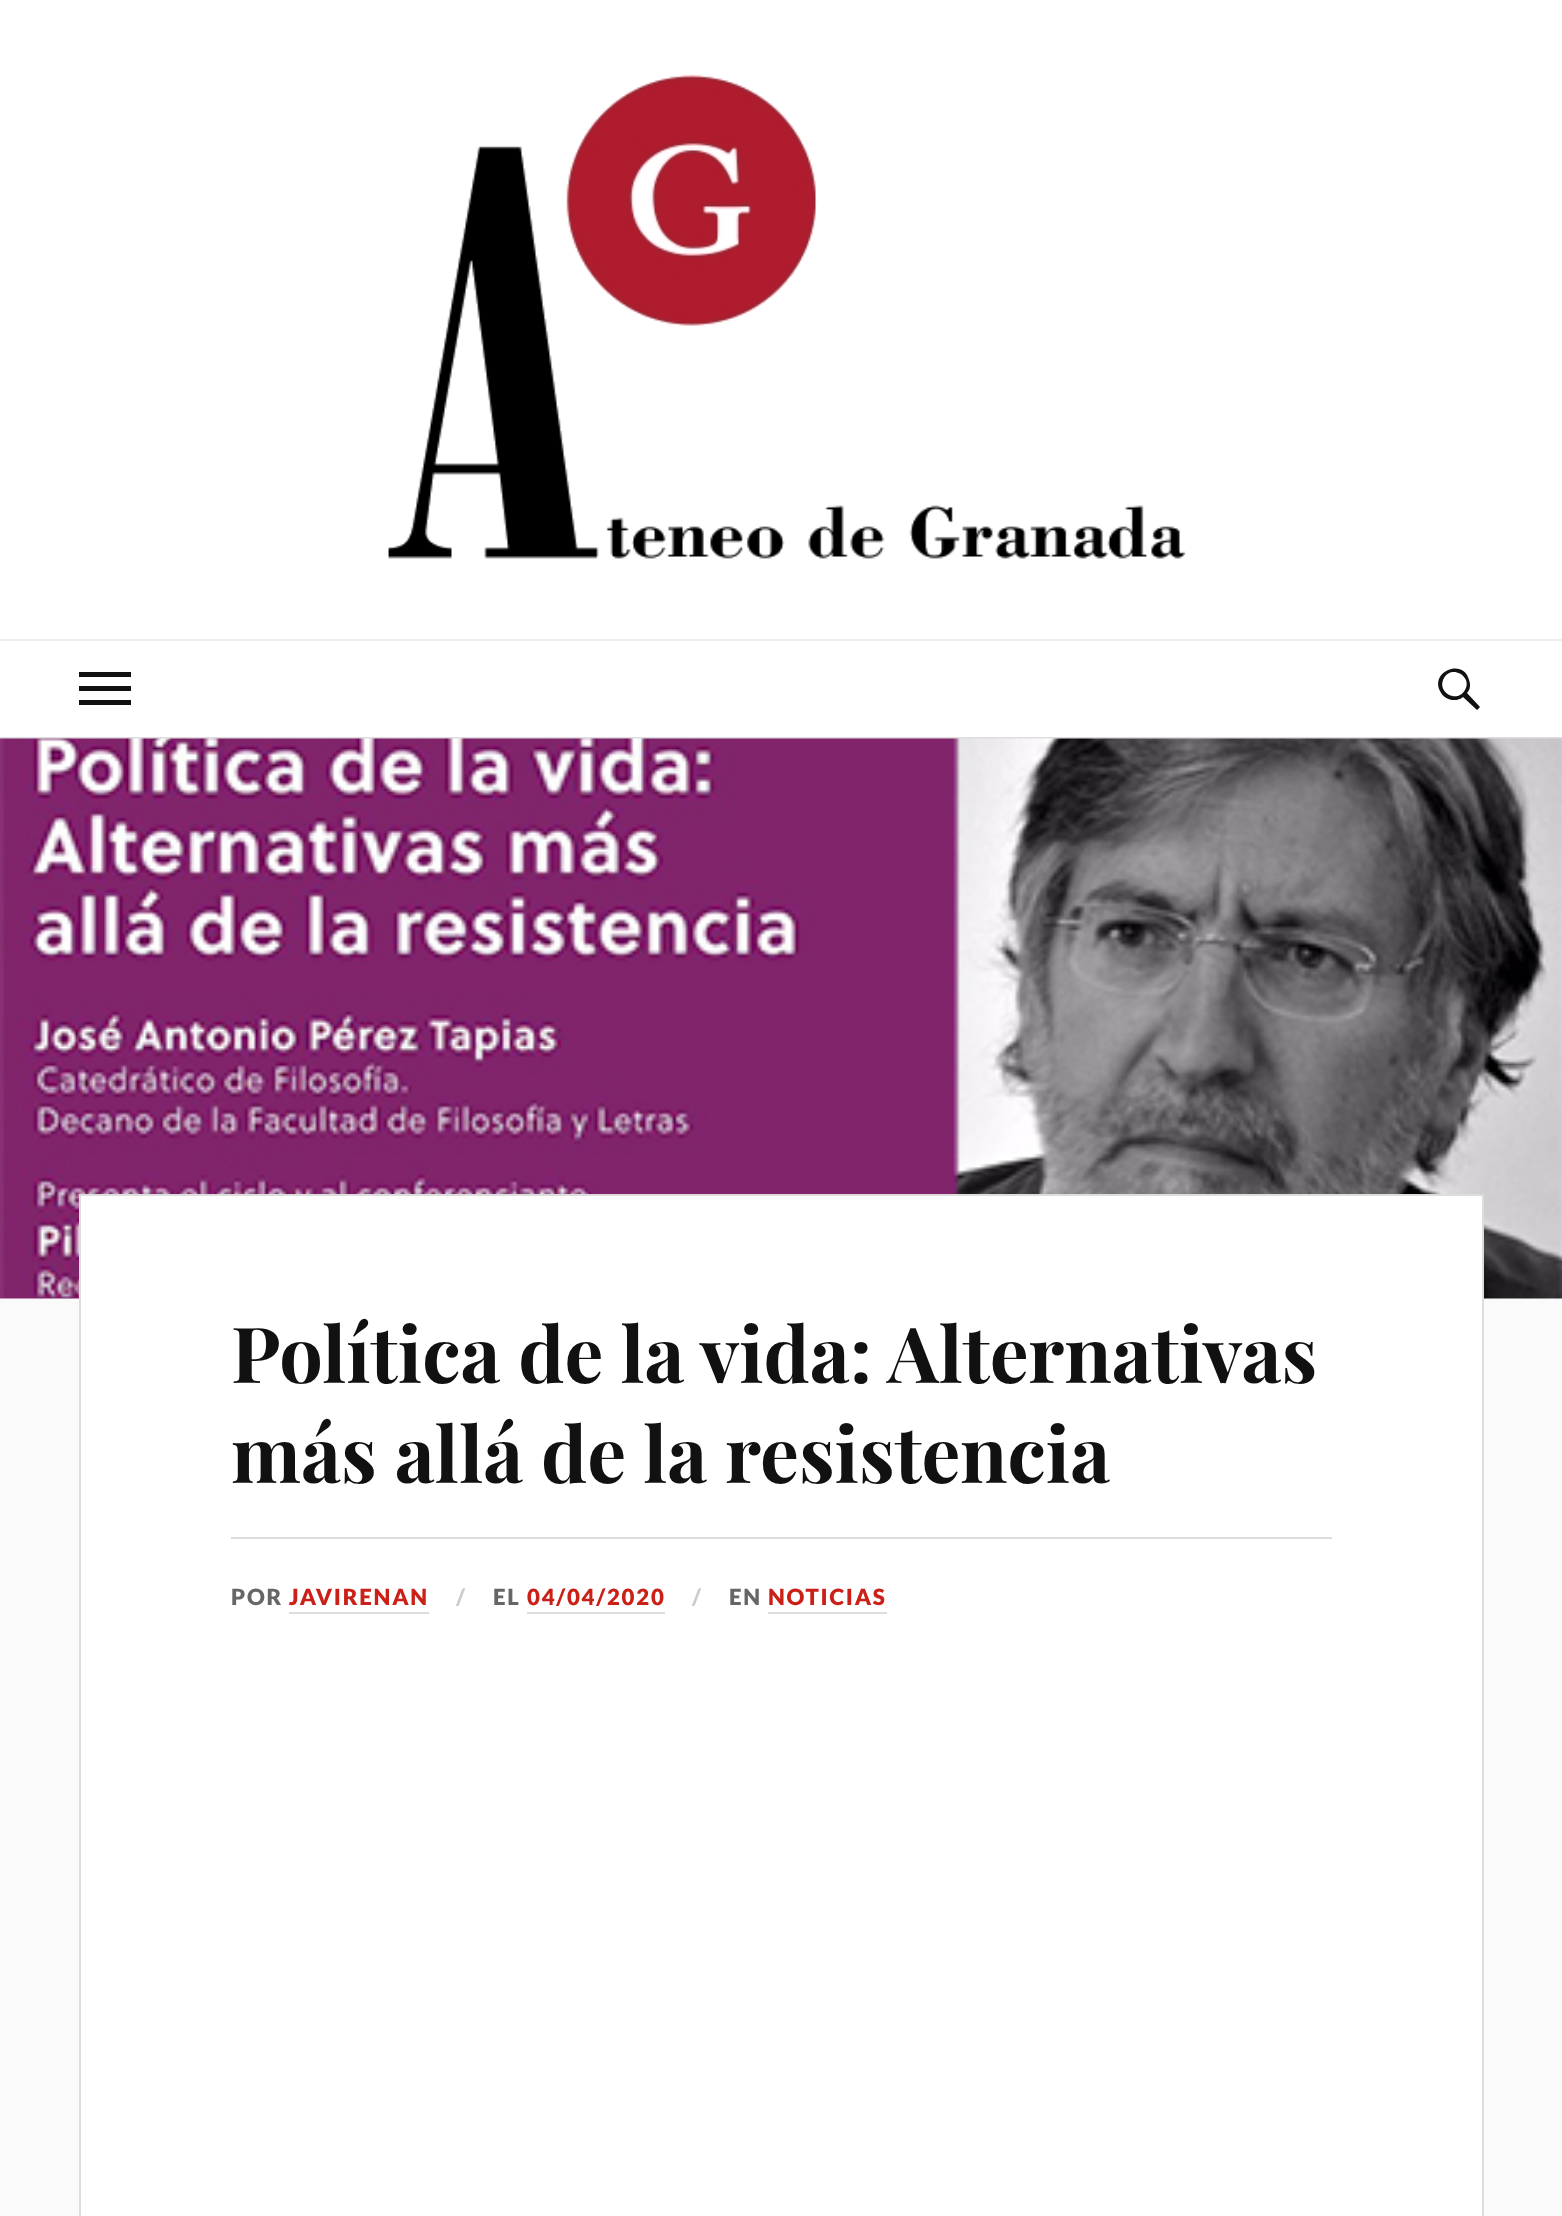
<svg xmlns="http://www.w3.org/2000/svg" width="1562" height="2216">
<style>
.a{font:bold 77.3px Playfair Display;fill:#111}
.b{font:900 22.25px Lato;letter-spacing:1.75px;fill:#666}
.c{font:900 22.25px Lato;letter-spacing:1.75px;fill:#ca2017}
.d{font:900 22.25px Lato;letter-spacing:1.75px;fill:#ccc}
</style>
<rect width="100%" height="100%" fill="#fafafa"/>
<path fill="#fff" d="M0 0h1562v639H0z"/>
<image href="1.png" x="388" y="74" width="798" height="485"/>
<path fill="#fff" d="M0 641h1562v96H0z"/>
<path fill="#eee" d="M0 639h1562v2H0z"/>
<path fill="#111" d="M79 672h52v5H79z"/>
<path fill="#111" d="M79 686h52v5H79z"/>
<path fill="#111" d="M79 700h52v5H79z"/>
<path fill="#111" d="M1480 707l-3 3l-14-13c-7 6-19 3-23-6c-10-20 24-33 29-11c2 5 1 10-2 13zm-36-29c-8 14 13 26 21 12c8-13-13-26-21-12z"/>
<path fill="#ddd" d="M0 737h1562v2H0z"/>
<image href="2.png" x="0" y="738" width="1562" height="561"/>
<path fill="#fff" stroke="#ddd" stroke-width="2" d="M80 1195h1403v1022H80z"/>
<path fill="#ddd" d="M231 1537h1101v2H231z"/>
<path fill="#ddd" d="M289 1612h140v2H289z"/>
<path fill="#ddd" d="M527 1612h138v2H527z"/>
<path fill="#ddd" d="M768 1612h119v2H768z"/>
<text class="a" x="231" y="1383">Política de la vida: Alternativas</text>
<text class="a" x="231" y="1483">más allá de la resistencia</text>
<text class="b" x="231" y="1605">POR</text>
<text class="c" x="289" y="1605">JAVIRENAN</text>
<text class="d" x="456" y="1605">/</text>
<text class="b" x="493" y="1605">EL</text>
<text class="c" x="527" y="1605">04/04/2020</text>
<text class="d" x="692" y="1605">/</text>
<text class="b" x="729" y="1605">EN</text>
<text class="c" x="768" y="1605">NOTICIAS</text>
</svg>
